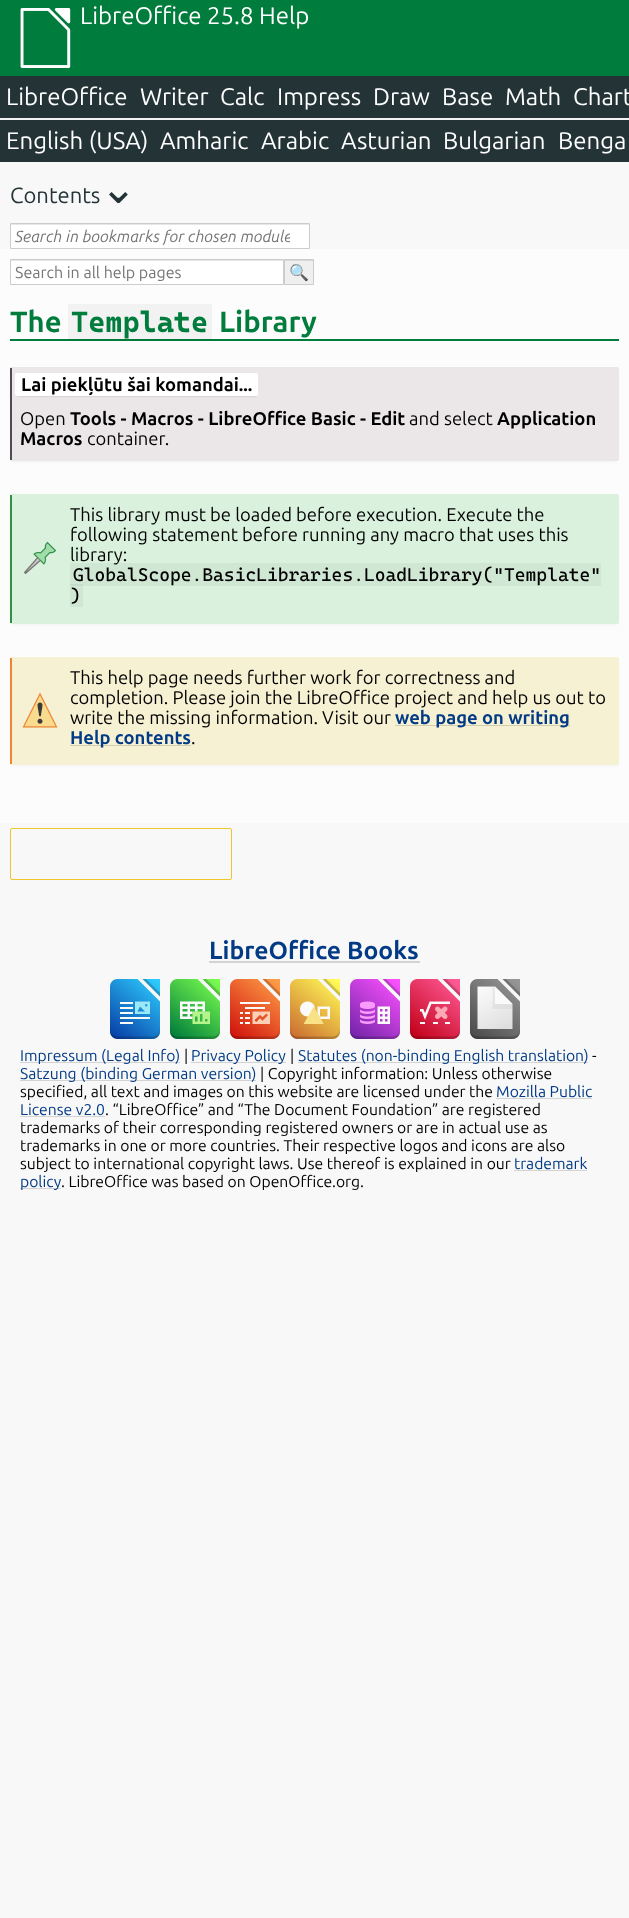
<svg xmlns="http://www.w3.org/2000/svg" width="629" height="1918">
<style>
.a{font:24px Ubuntu;fill:#fff}
.b{font:22px Ubuntu;fill:#233336}
.c{font:44px DejaVu Sans;fill:#233336}
.d{font:italic 16px Ubuntu;fill:#757575}
.e{font:16px Ubuntu;fill:#757575}
.f{font:16px Noto Color Emoji;fill:#000}
.g{font:bold 29.25px Ubuntu;fill:#007c3c}
.h{font:bold 29.25px Cascadia Mono;fill:#007c3c}
.i{font:bold 18.4px Ubuntu;fill:#000}
.j{font:18.4px Ubuntu;fill:#000}
.k{font:18.4px Cascadia Mono;fill:#000}
.l{font:bold 18.4px Ubuntu;fill:#023a86}
.m{font:bold 24.75px Ubuntu;fill:#023a86}
.n{font:15.7px Ubuntu;fill:#023a86}
.o{font:15.7px Ubuntu;fill:#000}
</style>
<defs>
<clipPath id="clip1"><path d="M15 227h275v18H15z"/></clipPath>
</defs>
<rect width="100%" height="100%" fill="#f7f8f7"/>
<path fill="#007c3c" d="M0 0h629v76H0z"/>
<image href="1.png" x="20" y="8" width="51" height="60"/>
<path fill="#233336" d="M0 76h629v42H0z"/>
<path fill="#f3f3f3" d="M0 118h629v2H0z"/>
<path fill="#233336" d="M0 120h629v42H0z"/>
<path fill="#fff" d="M11 225h298v23H11z"/>
<path fill="#e6e6e6" d="M11 224h298v1H11z"/>
<path fill="none" stroke="#ccc" d="M10.5 223.5h299v25H10.5z"/>
<path fill="#fcfcfc" d="M0 249h629v574H0z"/>
<path fill="#fff" d="M11 261h272v23H11z"/>
<path fill="#e6e6e6" d="M11 260h272v1H11z"/>
<path fill="none" stroke="#ccc" d="M10.5 259.5h273v25H10.5z"/>
<path fill="#efefef" d="M285 261h28v23H285z"/>
<path fill="#d7d7d7" d="M285 260h28v1H285z"/>
<path fill="none" stroke="#ccc" d="M284.5 259.5h29v25H284.5z"/>
<path fill="#007c3c" d="M10 339h609v2H10z"/>
<path fill="#0000000a" d="M68 304h144v36H68z"/>
<path fill="#0000001a" filter="blur(2.5px)" d="M13 372h603v88H13z"/>
<rect fill="#ebe7e9" x="10" y="367" width="609" height="94" rx="2"/>
<path fill="#4e4b55" d="M10 368h2v92H10z"/>
<path fill="#00000033" filter="blur(1px)" d="M17 377h239v19H17z"/>
<rect fill="#fff" x="15" y="373" width="243" height="23" rx="2"/>
<path fill="#0000001a" filter="blur(2.5px)" d="M13 499h603v124H13z"/>
<rect fill="#d9f1dd" x="10" y="494" width="609" height="130" rx="2"/>
<path fill="#309048" d="M10 495h2v128H10z"/>
<image href="2.png" x="23" y="541" width="34" height="34"/>
<path fill="#0000000a" d="M70 563h531v23H70z"/>
<path fill="#0000000a" d="M70 584h13v23H70z"/>
<path fill="#0000001a" filter="blur(2.5px)" d="M13 662h603v102H13z"/>
<rect fill="#f6f1d2" x="10" y="657" width="609" height="108" rx="2"/>
<path fill="#ed8733" d="M10 658h2v106H10z"/>
<image href="3.png" x="22" y="692" width="36" height="36"/>
<path fill="#d1cdb3" d="M395 725h175v1H395z"/>
<path fill="#d1cdb3" d="M70 745h121v1H70z"/>
<rect fill="none" stroke="#f1c62a" x="10.5" y="828.5" width="221" height="51" rx="1.5"/>
<path fill="#d2d3d2" d="M209 961h211v2H209z"/>
<image href="4.png" x="110" y="979" width="50" height="60"/>
<image href="5.png" x="170" y="979" width="50" height="60"/>
<image href="6.png" x="230" y="979" width="50" height="60"/>
<image href="7.png" x="290" y="979" width="50" height="60"/>
<image href="8.png" x="350" y="979" width="50" height="60"/>
<image href="9.png" x="410" y="979" width="50" height="60"/>
<image href="10.png" x="470" y="979" width="50" height="60"/>
<path fill="#d2d3d2" d="M20 1062h160v1H20z"/>
<path fill="#d2d3d2" d="M191 1062h95v1H191z"/>
<path fill="#d2d3d2" d="M298 1062h290v1H298z"/>
<path fill="#d2d3d2" d="M20 1080h236v1H20z"/>
<path fill="#d2d3d2" d="M496 1098h96v1H496z"/>
<path fill="#d2d3d2" d="M20 1116h85v1H20z"/>
<path fill="#d2d3d2" d="M514 1170h73v1H514z"/>
<path fill="#d2d3d2" d="M20 1188h41v1H20z"/>
<text class="a" x="80" y="24">LibreOffice 25.8 Help</text>
<text class="a" x="6" y="105">LibreOffice</text>
<text class="a" x="140" y="105">Writer</text>
<text class="a" x="220" y="105">Calc</text>
<text class="a" x="277" y="105">Impress</text>
<text class="a" x="373" y="105">Draw</text>
<text class="a" x="442" y="105">Base</text>
<text class="a" x="505" y="105">Math</text>
<text class="a" x="573" y="105">Chart</text>
<text class="a" x="6" y="149">English (USA)</text>
<text class="a" x="160" y="149">Amharic</text>
<text class="a" x="261" y="149">Arabic</text>
<text class="a" x="341" y="149">Asturian</text>
<text class="a" x="443" y="149">Bulgarian</text>
<text class="a" x="558" y="149">Benga</text>
<text class="b" x="10" y="203">Contents</text>
<text class="c" x="100" y="203">⌄</text>
<g clip-path="url(#clip1)">
<text class="d" x="15" y="242">Search in bookmarks for chosen module</text>
</g>
<text class="e" x="15" y="278">Search in all help pages</text>
<text class="f" x="289" y="278">🔍</text>
<text class="g" x="10" y="332">The</text>
<text class="h" x="71" y="332">Template</text>
<text class="g" x="219" y="332">Library</text>
<text class="i" x="21" y="391">Lai piekļūtu šai komandai...</text>
<text class="j" x="20" y="425">Open</text>
<text class="i" x="70" y="425">Tools - Macros - LibreOffice Basic - Edit</text>
<text class="j" x="409" y="425">and select</text>
<text class="i" x="497" y="425">Application</text>
<text class="i" x="20" y="445">Macros</text>
<text class="j" x="87" y="445">container.</text>
<text class="j" x="70" y="521">This library must be loaded before execution. Execute the</text>
<text class="j" x="70" y="541">following statement before running any macro that uses this</text>
<text class="j" x="70" y="561">library:</text>
<text class="k" x="73" y="581">GlobalScope.BasicLibraries.LoadLibrary("Template"</text>
<text class="k" x="70" y="602">)</text>
<text class="j" x="70" y="684">This help page needs further work for correctness and</text>
<text class="j" x="70" y="704">completion. Please join the LibreOffice project and help us out to</text>
<text class="j" x="70" y="724">write the missing information. Visit our</text>
<text class="l" x="395" y="724">web page on writing</text>
<text class="l" x="70" y="744">Help contents</text>
<text class="j" x="191" y="744">.</text>
<text class="m" x="209" y="959">LibreOffice Books</text>
<text class="n" x="20" y="1061">Impressum (Legal Info)</text>
<text class="o" x="184" y="1061">|</text>
<text class="n" x="191" y="1061">Privacy Policy</text>
<text class="o" x="290" y="1061">|</text>
<text class="n" x="298" y="1061">Statutes (non-binding English translation)</text>
<text class="o" x="592" y="1061">-</text>
<text class="n" x="20" y="1079">Satzung (binding German version)</text>
<text class="o" x="260" y="1079">| Copyright information: Unless otherwise</text>
<text class="o" x="20" y="1097">specified, all text and images on this website are licensed under the</text>
<text class="n" x="496" y="1097">Mozilla Public</text>
<text class="n" x="20" y="1115">License v2.0</text>
<text class="o" x="105" y="1115">. “LibreOffice” and “The Document Foundation” are registered</text>
<text class="o" x="20" y="1133">trademarks of their corresponding registered owners or are in actual use as</text>
<text class="o" x="20" y="1151">trademarks in one or more countries. Their respective logos and icons are also</text>
<text class="o" x="20" y="1169">subject to international copyright laws. Use thereof is explained in our</text>
<text class="n" x="514" y="1169">trademark</text>
<text class="n" x="20" y="1187">policy</text>
<text class="o" x="61" y="1187">. LibreOffice was based on OpenOffice.org.</text>
</svg>
